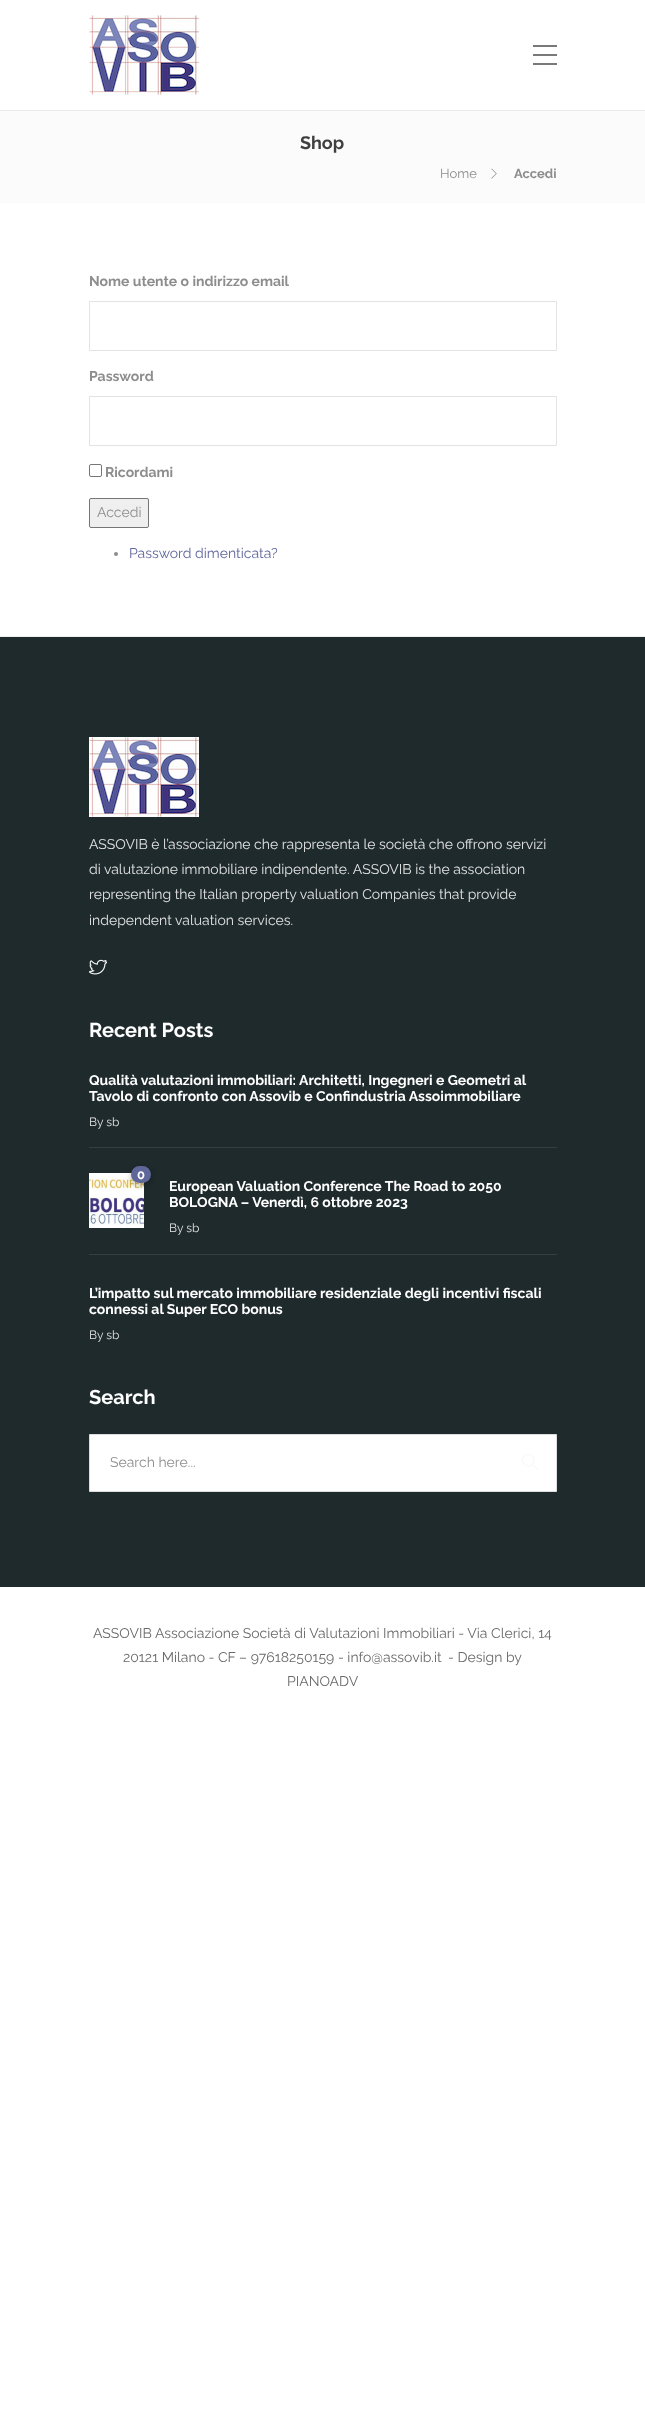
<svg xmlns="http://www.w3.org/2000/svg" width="645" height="2427">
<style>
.a{font:bold 18px Raleway;fill:#3f3f3f}
.b{font:13px Raleway;fill:#8d8d8d}
.c{font:bold 13px Raleway;fill:#8d8d8d}
.d{font:bold 14px Raleway;fill:#8d8d8d}
.e{font:14px Raleway;fill:#8d8d8d}
.f{font:14px Raleway;fill:#5f669a}
.g{font:14px Raleway;fill:#e3e3e3}
.h{font:bold 20px Raleway;fill:#fff}
.i{font:bold 14px Raleway;fill:#fff}
.j{font:12px Raleway;fill:#e3e3e3}
.k{font:bold 13px Raleway;fill:#fff}
.l{font:14px Raleway;fill:#6a6a6a}
</style>
<rect width="100%" height="100%" fill="#fff"/>
<path fill="#ebebeb" d="M0 110h645v1H0z"/>
<image href="1.png" x="89" y="15" width="110" height="80"/>
<path fill="#797979" d="M533 54h24v2H533z"/>
<path fill="#797979" d="M533 45h24v2H533z"/>
<path fill="#797979" d="M533 63h24v2H533z"/>
<path fill="#fbfbfb" d="M0 111h645v92H0z"/>
<image href="2.png" x="491" y="168" width="6" height="11"/>
<path fill="none" stroke="#e3e3e3" d="M89.5 301.5h467v49H89.5z"/>
<path fill="none" stroke="#e3e3e3" d="M89.5 396.5h467v49H89.5z"/>
<rect fill="none" stroke="#767676" x="89.5" y="464.5" width="12" height="12" rx="1.5"/>
<rect fill="#efefef" stroke="#767676" x="89.5" y="498.5" width="59" height="29" rx="1.5"/>
<circle fill="#8d8d8d" cx="116" cy="554" r="2"/>
<path fill="#efefef" d="M0 636h645v1H0z"/>
<path fill="#1f2a2c" d="M0 637h645v950H0z"/>
<image href="1.png" x="89" y="737" width="110" height="80"/>
<image href="3.png" x="89" y="959" width="18" height="16"/>
<path fill="#353f41" d="M89 1147h468v1H89z"/>
<path fill="#353f41" d="M89 1254h468v1H89z"/>
<image href="4.png" x="89" y="1173" width="55" height="55"/>
<rect fill="#00000033" filter="blur(2.5px)" x="130" y="1167" width="22" height="19" rx="9.5"/>
<rect fill="#5f669a" x="131" y="1166" width="20" height="17" rx="8.5"/>
<path fill="#fff" stroke="#ddd" d="M89.5 1434.5h467v57H89.5z"/>
<image href="5.png" x="522" y="1454" width="16" height="16"/>
<text class="a" x="300" y="149">Shop</text>
<text class="b" x="440" y="178">Home</text>
<text class="c" x="514" y="178">Accedi</text>
<text class="d" x="89" y="286">Nome utente o indirizzo email</text>
<text class="d" x="89" y="381">Password</text>
<text class="d" x="105" y="477">Ricordami</text>
<text class="e" x="97" y="517">Accedi</text>
<text class="f" x="129" y="558">Password dimenticata?</text>
<text class="g" x="89" y="849">ASSOVIB è l’associazione che rappresenta le società che offrono servizi</text>
<text class="g" x="89" y="874">di valutazione immobiliare indipendente. ASSOVIB is the association</text>
<text class="g" x="89" y="899">representing the Italian property valuation Companies that provide</text>
<text class="g" x="89" y="925">independent valuation services.</text>
<text class="h" x="89" y="1037">Recent Posts</text>
<text class="i" x="89" y="1085">Qualità valutazioni immobiliari: Architetti, Ingegneri e Geometri al</text>
<text class="i" x="89" y="1101">Tavolo di confronto con Assovib e Confindustria Assoimmobiliare</text>
<text class="j" x="89" y="1126">By sb</text>
<text class="k" x="137" y="1179">0</text>
<text class="i" x="169" y="1191">European Valuation Conference The Road to 2050</text>
<text class="i" x="169" y="1207">BOLOGNA – Venerdì, 6 ottobre 2023</text>
<text class="j" x="169" y="1232">By sb</text>
<text class="i" x="89" y="1298">L’impatto sul mercato immobiliare residenziale degli incentivi fiscali</text>
<text class="i" x="89" y="1314">connessi al Super ECO bonus</text>
<text class="j" x="89" y="1339">By sb</text>
<text class="h" x="89" y="1404">Search</text>
<text class="e" x="110" y="1467">Search here...</text>
<text class="l" x="93" y="1638">ASSOVIB Associazione Società di Valutazioni Immobiliari - Via Clerici, 14</text>
<text class="l" x="123" y="1662">20121 Milano - CF – 97618250159 - info@assovib.it</text>
<text class="l" x="448" y="1662">- Design by</text>
<text class="l" x="287" y="1686">PIANOADV</text>
</svg>
